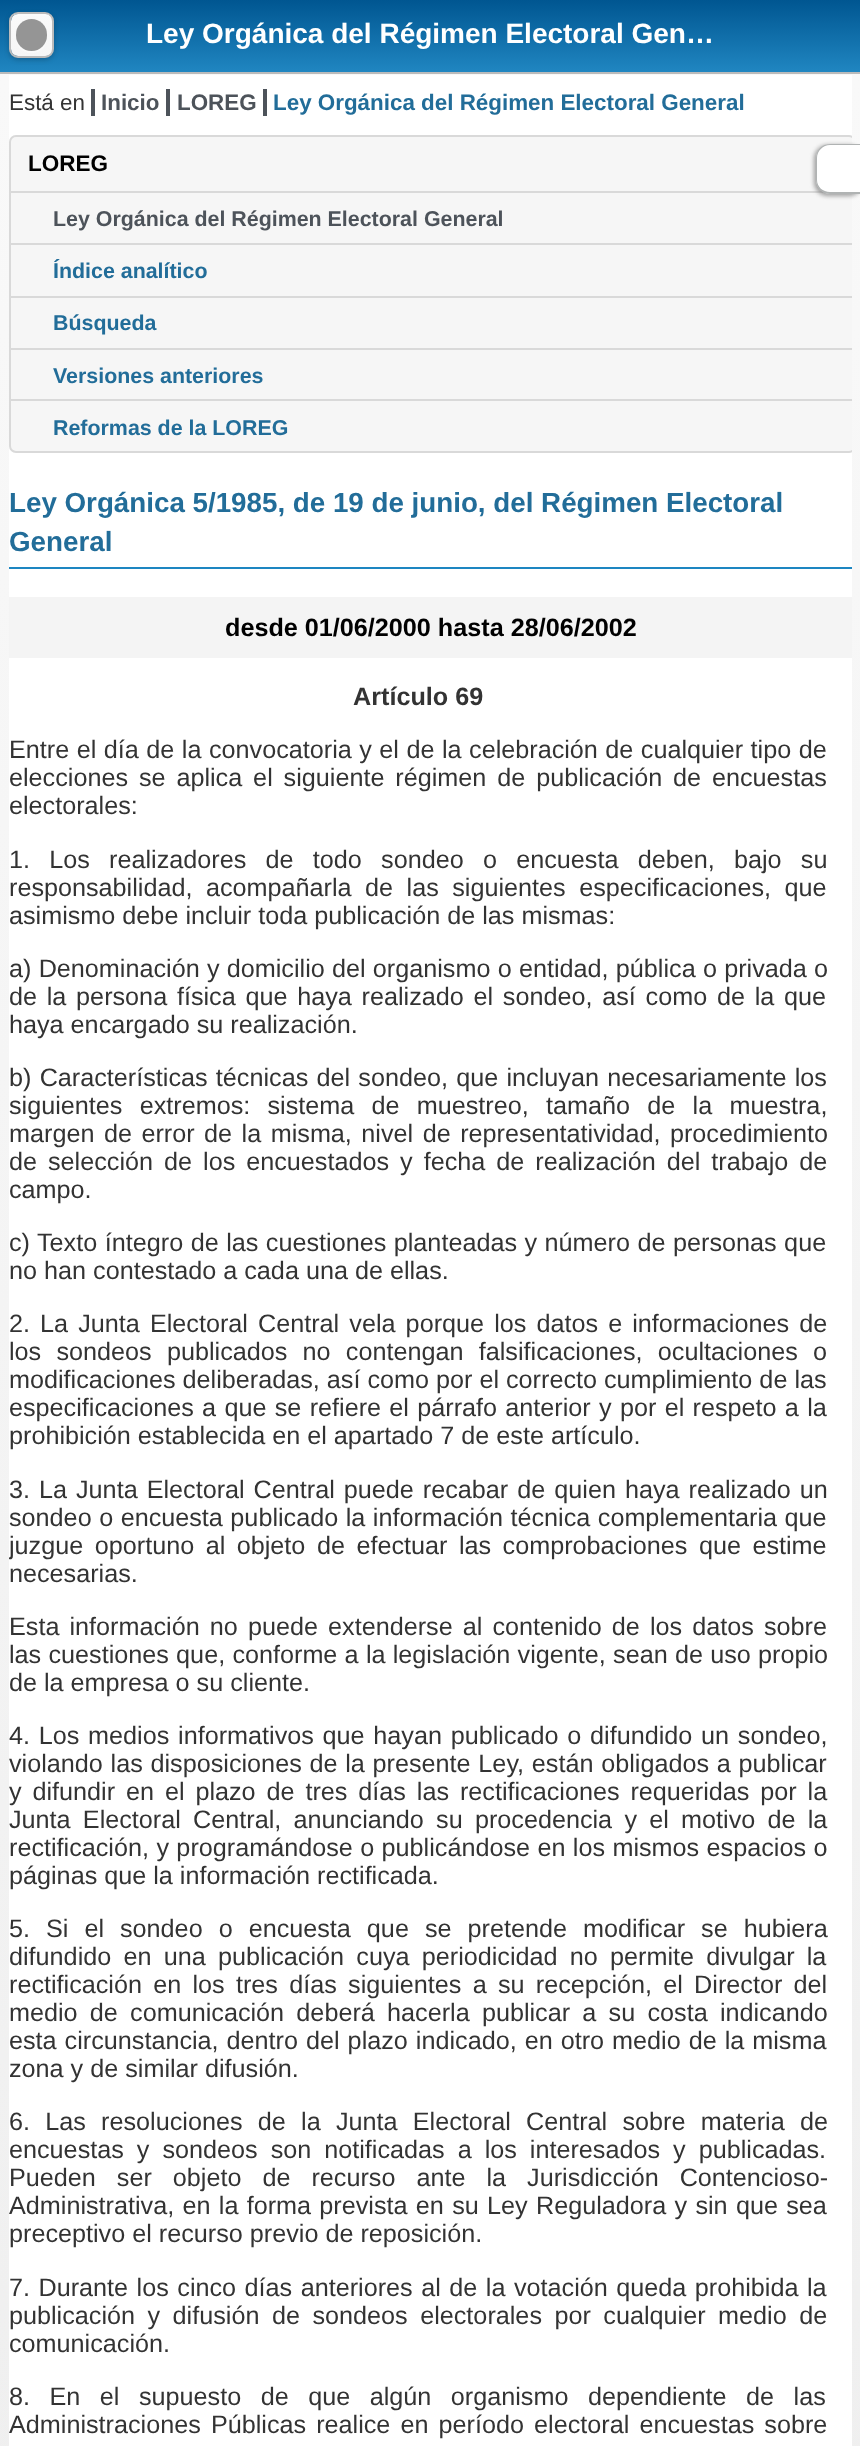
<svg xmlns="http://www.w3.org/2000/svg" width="860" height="2446">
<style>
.a{font:bold 28px Liberation Sans;fill:#fff}
.b{font:22.4px Liberation Sans;fill:#333}
.c{font:bold 22.4px Liberation Sans;fill:#4d535a}
.d{font:bold 22.4px Liberation Sans;fill:#226d99}
.e{font:bold 22.5px Liberation Sans;fill:#000}
.f{font:bold 21.4px Liberation Sans;fill:#4d535a}
.g{font:bold 21.4px Liberation Sans;fill:#226d99}
.h{font:bold 27.75px Liberation Sans;fill:#226d99}
.i{font:bold 25.2px Liberation Sans;fill:#000}
.j{font:bold 25.2px Liberation Sans;fill:#333}
.k{font:25.2px Liberation Sans;fill:#333}
</style>
<defs>
<linearGradient id="g1" gradientUnits="userSpaceOnUse" x1="430" y1="0" x2="431" y2="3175"><stop offset="0" stop-color="#f9f9f9"/><stop offset="1" stop-color="#eee"/></linearGradient>
<linearGradient id="g2" gradientUnits="userSpaceOnUse" x1="431" y1="0" x2="431" y2="72"><stop offset="0" stop-color="#005691"/><stop offset="1" stop-color="#2086c1"/></linearGradient>
<linearGradient id="g3" gradientUnits="userSpaceOnUse" x1="32" y1="14" x2="32" y2="56"><stop offset="0" stop-color="#fafafa"/><stop offset="1" stop-color="#f6f6f6"/></linearGradient>
<linearGradient id="g4" gradientUnits="userSpaceOnUse" x1="430" y1="75" x2="431" y2="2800"><stop offset="0" stop-color="#f9f9f9"/><stop offset="1" stop-color="#eee"/></linearGradient>
<clipPath id="clip1"><path d="M9 75h843v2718H9z"/></clipPath>
<clipPath id="clip2"><path d="M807 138h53v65h-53zm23 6h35v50h-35c-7.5 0-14-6.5-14-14v-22c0-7.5 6.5-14 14-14z" clip-rule="evenodd"/></clipPath>
</defs>
<rect width="100%" height="100%" fill="#fff"/>
<path fill="url(#g1)" d="M0 74h860v1H0z"/>
<path fill="url(#g2)" d="M0 0h860v72H0z"/>
<path fill="#bbb" d="M0 72h860v2H0z"/>
<rect fill="#00000033" filter="blur(2.5px)" x="9" y="14" width="45" height="46" rx="9"/>
<rect fill="url(#g3)" x="11" y="14" width="42" height="42" rx="7"/>
<rect fill="none" stroke="#bbb" stroke-width="2" x="10" y="13" width="43" height="44" rx="8"/>
<path fill="#ffffff4d" d="M14 14h35v2H14z"/>
<path fill="#fafafa" d="M47 38c-3 17-28 17-31 0c.5 20 30.5 20 31 0z"/>
<rect fill="#959595" x="16" y="19" width="31" height="32" rx="15.5"/>
<path fill="url(#g4)" d="M0 75h860v2371H0z"/>
<path fill="#fff" d="M9 75h843v2371H9z"/>
<path fill="#4d535a" d="M91 89h4v27H91z"/>
<path fill="#4d535a" d="M166 89h4v27H166z"/>
<path fill="#4d535a" d="M263 89h4v27H263z"/>
<g clip-path="url(#clip1)">
<rect fill="#f6f6f6" stroke="#d9d9d9" stroke-width="2" x="10" y="136" width="845" height="316" rx="6"/>
</g>
<path fill="#d9d9d9" d="M11 191h814v2H11z"/>
<path fill="#d9d9d9" d="M11 243h841v2H11z"/>
<path fill="#d9d9d9" d="M11 296h841v2H11z"/>
<path fill="#d9d9d9" d="M11 348h841v2H11z"/>
<path fill="#d9d9d9" d="M11 399h841v2H11z"/>
<path fill="#1d86c1" d="M9 567h843v2H9z"/>
<path fill="#f4f4f4" d="M9 597h843v61H9z"/>
<g clip-path="url(#clip2)">
<rect fill="#7a7a7ab3" filter="blur(2px)" x="814" y="145" width="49" height="51" rx="14"/>
</g>
<path fill="#fff" d="M829 145h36v48h-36c-6.5 0-12-5.5-12-12v-24c0-6.5 5.5-12 12-12z"/>
<path fill="#b0b3b3" fill-rule="evenodd" d="M830 144h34v50h-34c-8 0-14-6-14-14v-22c0-8 6-14 14-14zm0 1h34v47h-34c-7 0-13-5-13-12v-22c0-7 6-13 13-13z"/>
<text class="a" x="146" y="43">Ley Orgánica del Régimen Electoral Gen…</text>
<text class="b" x="9" y="110">Está en</text>
<text class="c" x="101" y="110">Inicio</text>
<text class="c" x="177" y="110">LOREG</text>
<text class="d" x="273" y="110">Ley Orgánica del Régimen Electoral General</text>
<text class="e" x="28" y="171">LOREG</text>
<text class="f" x="53" y="226">Ley Orgánica del Régimen Electoral General</text>
<text class="g" x="53" y="278">Índice analítico</text>
<text class="g" x="53" y="330">Búsqueda</text>
<text class="g" x="53" y="383">Versiones anteriores</text>
<text class="g" x="53" y="435">Reformas de la LOREG</text>
<text class="h" x="9" y="512">Ley Orgánica 5/1985, de 19 de junio, del Régimen Electoral</text>
<text class="h" x="9" y="551">General</text>
<text class="i" x="225" y="636">desde 01/06/2000 hasta 28/06/2002</text>
<text class="j" x="353" y="705">Artículo 69</text>
<text class="k" x="9" y="758" word-spacing="0.5">Entre el día de la convocatoria y el de la celebración de cualquier tipo de</text>
<text class="k" x="9" y="786" word-spacing="3.9">elecciones se aplica el siguiente régimen de publicación de encuestas</text>
<text class="k" x="9" y="814">electorales:</text>
<text class="k" x="9" y="868" word-spacing="12.25">1. Los realizadores de todo sondeo o encuesta deben, bajo su</text>
<text class="k" x="9" y="896" word-spacing="6.5">responsabilidad, acompañarla de las siguientes especificaciones, que</text>
<text class="k" x="9" y="924">asimismo debe incluir toda publicación de las mismas:</text>
<text class="k" x="9" y="977" word-spacing="0.25">a) Denominación y domicilio del organismo o entidad, pública o privada o</text>
<text class="k" x="9" y="1005" word-spacing="2.75">de la persona física que haya realizado el sondeo, así como de la que</text>
<text class="k" x="9" y="1033">haya encargado su realización.</text>
<text class="k" x="9" y="1086" word-spacing="1.25">b) Características técnicas del sondeo, que incluyan necesariamente los</text>
<text class="k" x="9" y="1114" word-spacing="10.25">siguientes extremos: sistema de muestreo, tamaño de la muestra,</text>
<text class="k" x="9" y="1142" word-spacing="2.5">margen de error de la misma, nivel de representatividad, procedimiento</text>
<text class="k" x="9" y="1170" word-spacing="4">de selección de los encuestados y fecha de realización del trabajo de</text>
<text class="k" x="9" y="1198">campo.</text>
<text class="k" x="9" y="1251" word-spacing="0.5">c) Texto íntegro de las cuestiones planteadas y número de personas que</text>
<text class="k" x="9" y="1279">no han contestado a cada una de ellas.</text>
<text class="k" x="9" y="1332" word-spacing="3.1">2. La Junta Electoral Central vela porque los datos e informaciones de</text>
<text class="k" x="9" y="1360" word-spacing="8.25">los sondeos publicados no contengan falsificaciones, ocultaciones o</text>
<text class="k" x="9" y="1388">modificaciones deliberadas, así como por el correcto cumplimiento de las</text>
<text class="k" x="9" y="1416" word-spacing="1.3">especificaciones a que se refiere el párrafo anterior y por el respeto a la</text>
<text class="k" x="9" y="1444">prohibición establecida en el apartado 7 de este artículo.</text>
<text class="k" x="9" y="1498" word-spacing="2">3. La Junta Electoral Central puede recabar de quien haya realizado un</text>
<text class="k" x="9" y="1526" word-spacing="0.5">sondeo o encuesta publicado la información técnica complementaria que</text>
<g clip-path="url(#clip1)">
<text class="k" x="9" y="1554" word-spacing="4.5">juzgue oportuno al objeto de efectuar las comprobaciones que estime</text>
</g>
<text class="k" x="9" y="1582">necesarias.</text>
<text class="k" x="9" y="1635" word-spacing="3.1">Esta información no puede extenderse al contenido de los datos sobre</text>
<text class="k" x="9" y="1663" word-spacing="0.25">las cuestiones que, conforme a la legislación vigente, sean de uso propio</text>
<text class="k" x="9" y="1691">de la empresa o su cliente.</text>
<text class="k" x="9" y="1744" word-spacing="1.75">4. Los medios informativos que hayan publicado o difundido un sondeo,</text>
<text class="k" x="9" y="1772" word-spacing="0.75">violando las disposiciones de la presente Ley, están obligados a publicar</text>
<text class="k" x="9" y="1800" word-spacing="3.9">y difundir en el plazo de tres días las rectificaciones requeridas por la</text>
<text class="k" x="9" y="1828" word-spacing="5.25">Junta Electoral Central, anunciando su procedencia y el motivo de la</text>
<text class="k" x="9" y="1856" word-spacing="0.4">rectificación, y programándose o publicándose en los mismos espacios o</text>
<text class="k" x="9" y="1884">páginas que la información rectificada.</text>
<text class="k" x="9" y="1937" word-spacing="9">5. Si el sondeo o encuesta que se pretende modificar se hubiera</text>
<text class="k" x="9" y="1965" word-spacing="5.25">difundido en una publicación cuya periodicidad no permite divulgar la</text>
<text class="k" x="9" y="1993" word-spacing="4.25">rectificación en los tres días siguientes a su recepción, el Director del</text>
<text class="k" x="9" y="2021" word-spacing="5.25">medio de comunicación deberá hacerla publicar a su costa indicando</text>
<text class="k" x="9" y="2049" word-spacing="1">esta circunstancia, dentro del plazo indicado, en otro medio de la misma</text>
<text class="k" x="9" y="2077">zona y de similar difusión.</text>
<text class="k" x="9" y="2130" word-spacing="8.25">6. Las resoluciones de la Junta Electoral Central sobre materia de</text>
<text class="k" x="9" y="2158" word-spacing="6">encuestas y sondeos son notificadas a los interesados y publicadas.</text>
<text class="k" x="9" y="2186" word-spacing="14">Pueden ser objeto de recurso ante la Jurisdicción Contencioso-</text>
<text class="k" x="9" y="2214" word-spacing="1.3">Administrativa, en la forma prevista en su Ley Reguladora y sin que sea</text>
<text class="k" x="9" y="2242">preceptivo el recurso previo de reposición.</text>
<text class="k" x="9" y="2296" word-spacing="1.5">7. Durante los cinco días anteriores al de la votación queda prohibida la</text>
<text class="k" x="9" y="2324" word-spacing="5.5">publicación y difusión de sondeos electorales por cualquier medio de</text>
<text class="k" x="9" y="2352">comunicación.</text>
<text class="k" x="9" y="2405" word-spacing="12.5">8. En el supuesto de que algún organismo dependiente de las</text>
<text class="k" x="9" y="2433" word-spacing="3.1">Administraciones Públicas realice en período electoral encuestas sobre</text>
</svg>
